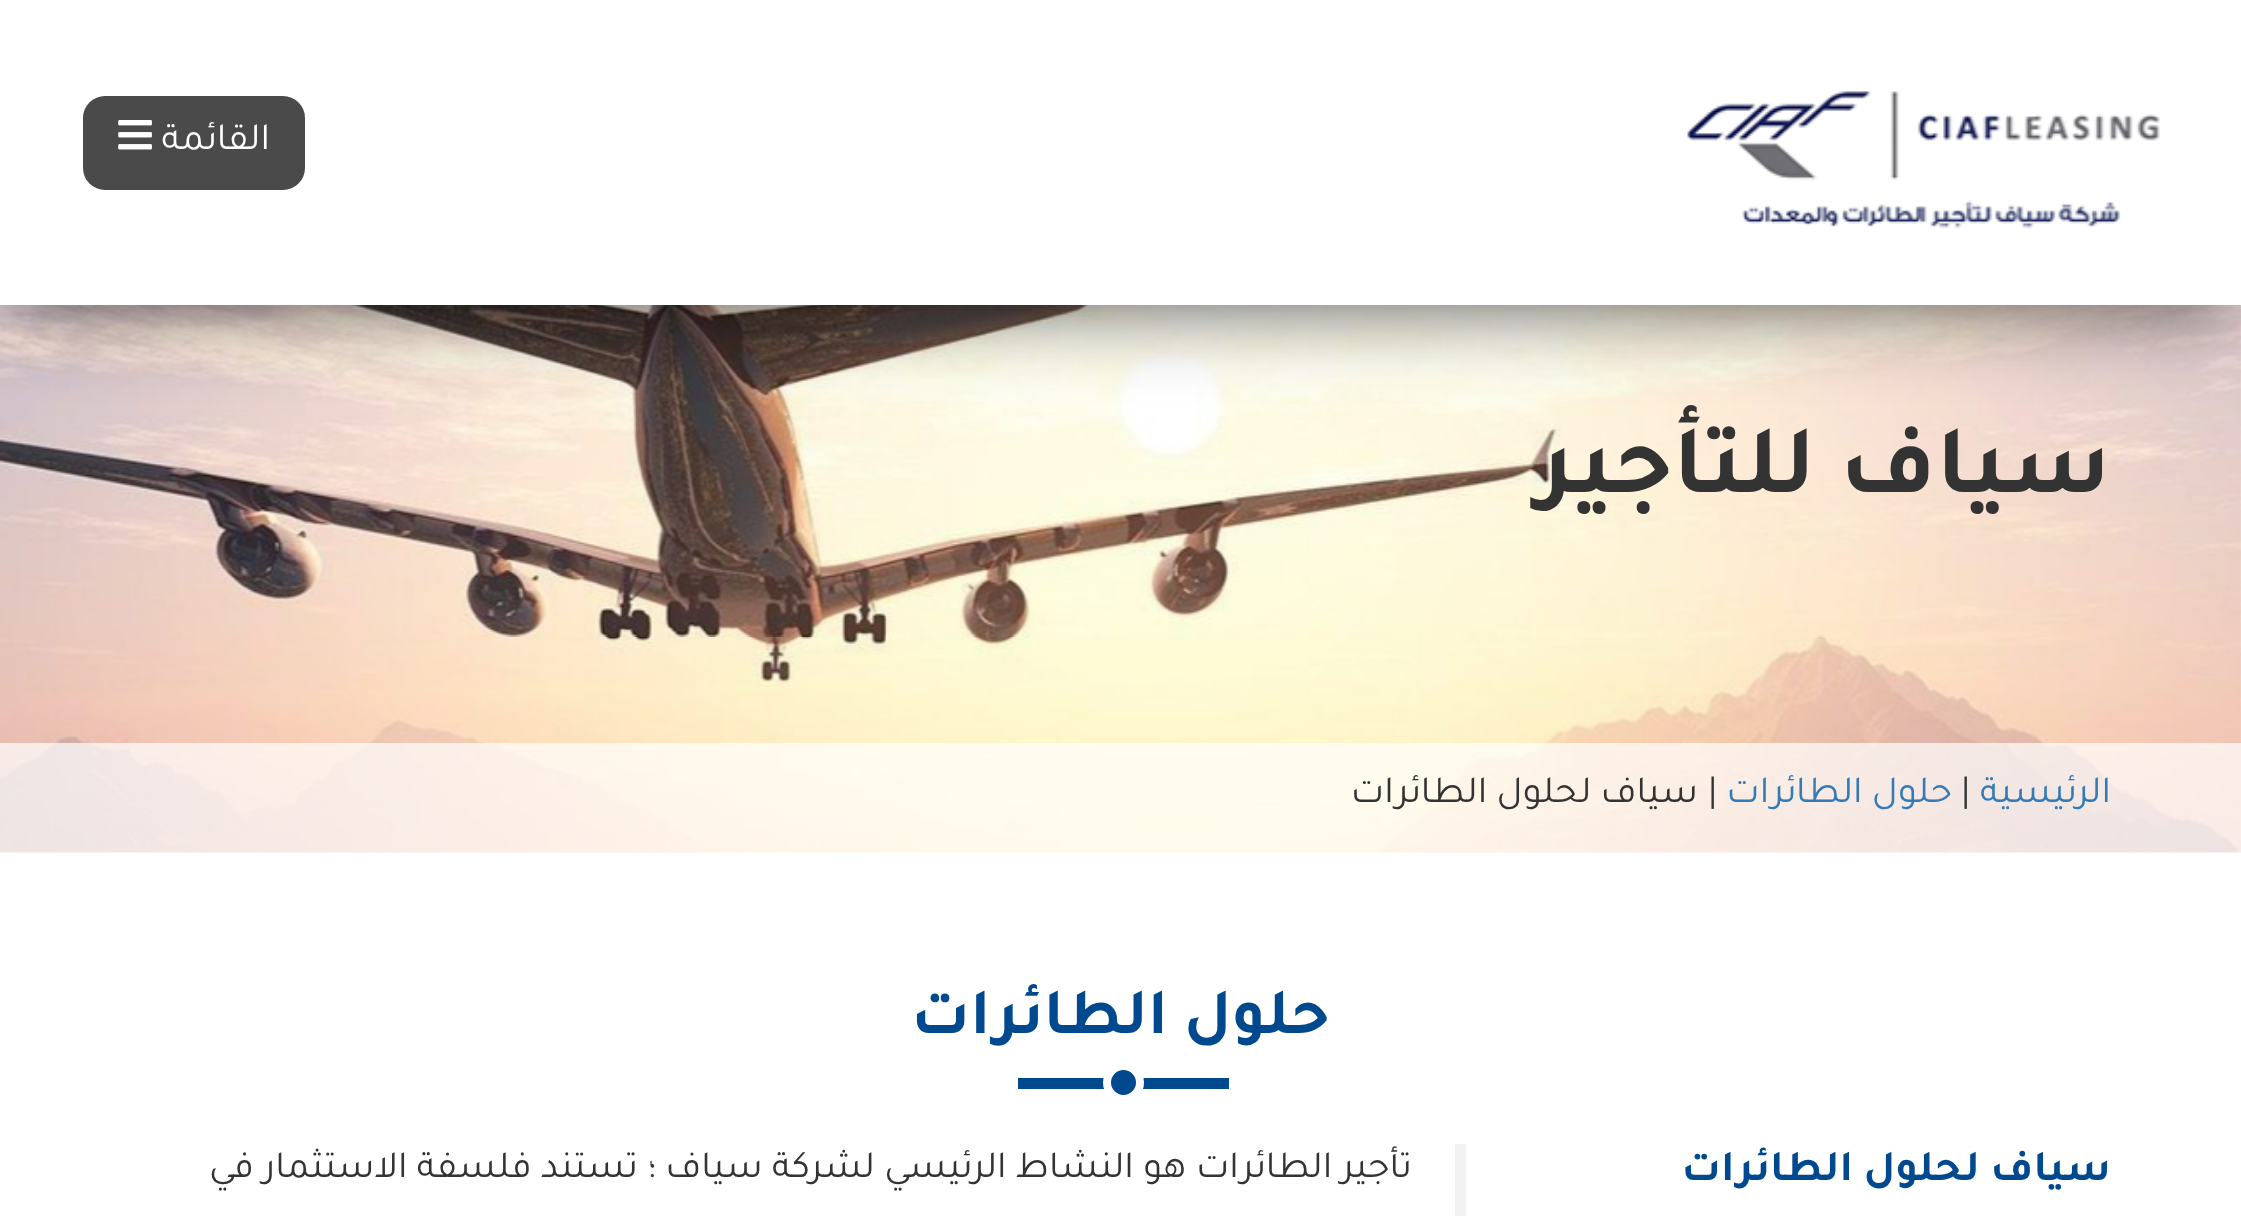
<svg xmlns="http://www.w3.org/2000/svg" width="2241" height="1216">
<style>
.a{font:38.5px Tajawal;direction:rtl;fill:#fff}
.b{font:bold 99px Tajawal;direction:rtl;fill:#333}
.c{font:38.5px Tajawal;direction:rtl;fill:#337ab7}
.d{font:38.5px Tajawal;fill:#333}
.e{font:38.5px Tajawal;direction:rtl;fill:#333}
.f{font:bold 66px Tajawal;direction:rtl;fill:#00498f}
.g{font:bold 44px Tajawal;direction:rtl;fill:#00498f}
</style>
<rect width="100%" height="100%" fill="#fff"/>
<image href="3.png" x="0" y="305" width="2241" height="548"/>
<path fill="#000000bf" filter="blur(44px)" d="M14 22h2214v278H14z"/>
<path fill="#fff" d="M0 0h2241v305H0z"/>
<image href="1.png" x="1686" y="91" width="474" height="138"/>
<rect fill="#4a4a4b" x="83" y="96" width="222" height="94" rx="22"/>
<image href="2.png" x="118" y="120" width="34" height="30"/>
<path fill="#ffffffb3" d="M0 743h2241v110H0z"/>
<path fill="#00498f" d="M1018 1078h211v11H1018z"/>
<circle fill="#00498f" stroke="#fff" stroke-width="8" cx="1123.5" cy="1082.5" r="16.5"/>
<path fill="#f2f2f2" d="M1455 1144h11v72H1455z"/>
<text class="a" x="270" y="149">القائمة</text>
<text class="b" x="2111" y="492">سياف للتأجير</text>
<text class="c" x="2111" y="802">الرئيسية</text>
<text class="d" x="1961" y="802">|</text>
<text class="c" x="1952" y="802">حلول الطائرات</text>
<text class="d" x="1708" y="802">|</text>
<text class="e" x="1698" y="802">سياف لحلول الطائرات</text>
<text class="f" x="1330" y="1033">حلول الطائرات</text>
<text class="g" x="2111" y="1180">سياف لحلول الطائرات</text>
<text class="e" x="1412" y="1177">تأجير الطائرات هو النشاط الرئيسي لشركة سياف ؛ تستند فلسفة الاستثمار في</text>
</svg>
